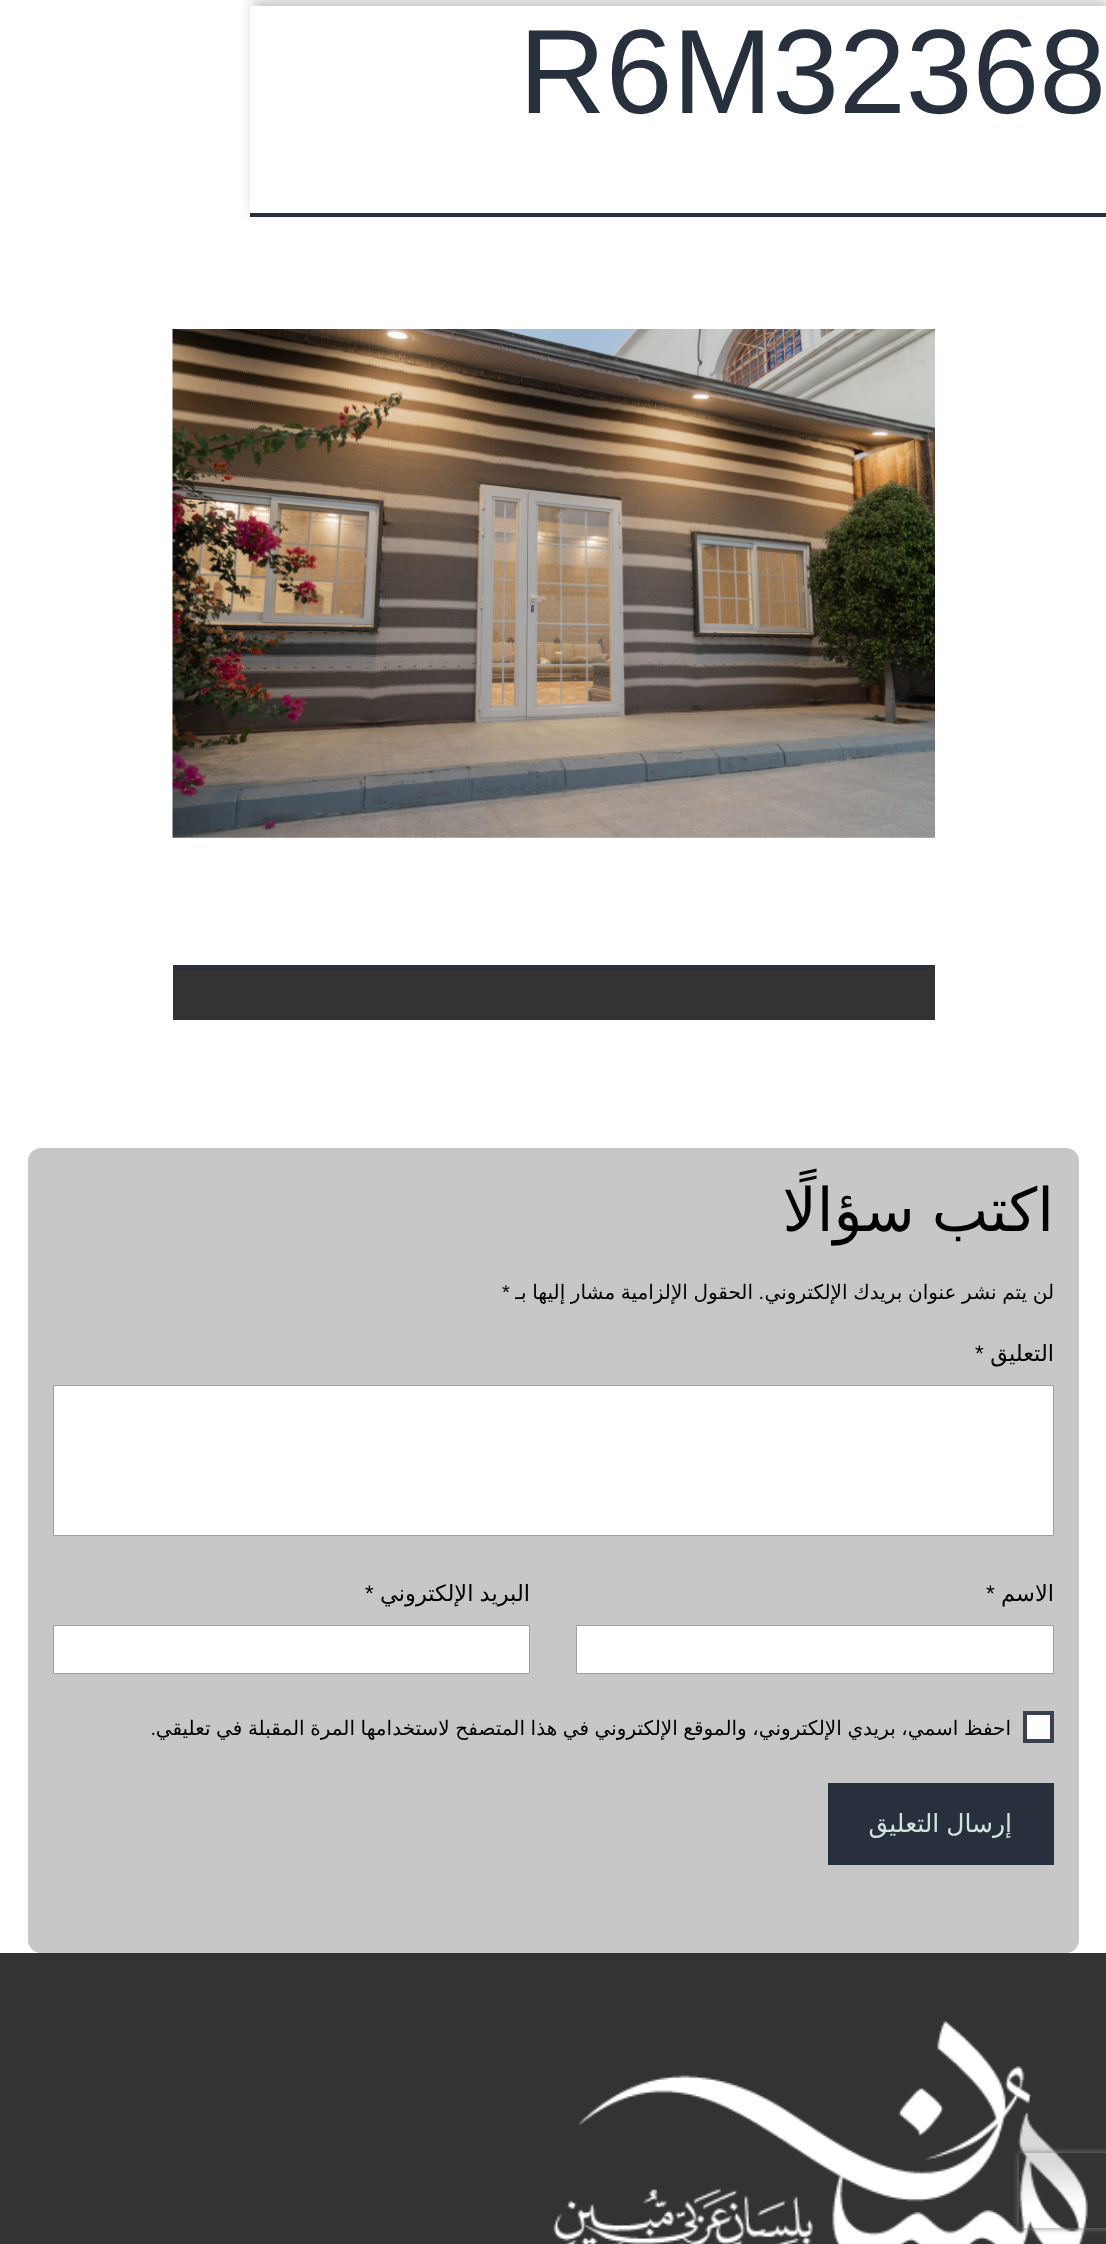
<svg xmlns="http://www.w3.org/2000/svg" width="1106" height="2244">
<style>
.a{font:120px Liberation Sans;fill:#28303d}
.b{font:60px DejaVu Sans;direction:rtl;fill:#000}
.c{font:20px DejaVu Sans;direction:rtl;fill:#000}
.d{font:20px Liberation Sans;fill:#000}
.e{font:20px Liberation Sans;direction:rtl;fill:#000}
.f{font:22.5px DejaVu Sans;direction:rtl;fill:#000}
.g{font:22.5px Liberation Sans;fill:#000}
.h{font:25px DejaVu Sans;direction:rtl;fill:#d1e4dd}
</style>
<defs>
<clipPath id="clip1"><path d="M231 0h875v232h-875zm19 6h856v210h-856z" clip-rule="evenodd"/></clipPath>
<clipPath id="clip2"><path d="M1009 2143h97v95h-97zm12.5 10h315c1.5 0 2.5 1 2.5 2.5v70c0 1.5-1 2.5-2.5 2.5h-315c-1.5 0-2.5-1-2.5-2.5v-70c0-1.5 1-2.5 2.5-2.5z" clip-rule="evenodd"/></clipPath>
</defs>
<rect width="100%" height="100%" fill="#fff"/>
<g clip-path="url(#clip1)">
<path fill="#9494948c" filter="blur(7px)" d="M253 0h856v210H253z"/>
</g>
<path fill="#ffffffde" d="M250 6h856v1H250z"/>
<path fill="#28303d" d="M250 213h856v4H250z"/>
<image href="1.png" x="172" y="329" width="763" height="509"/>
<path fill="#333" d="M173 969h762v51H173z"/>
<path fill="#28303d" d="M173 965h762v4H173z"/>
<rect fill="#c7c7c7" x="28" y="1148" width="1051" height="805" rx="13"/>
<path fill="#fff" stroke="#9e9e9e" d="M53.5 1385.5h1000v150H53.5z"/>
<path fill="#fff" stroke="#9e9e9e" d="M576.5 1625.5h477v48H576.5z"/>
<path fill="#fff" stroke="#9e9e9e" d="M53.5 1625.5h476v48H53.5z"/>
<path fill="#fff" stroke="#39414d" stroke-width="4" d="M1025 1713h27v28H1025z"/>
<path fill="#28303d" d="M828 1783h226v82H828z"/>
<path fill="#333" d="M0 1953h1106v291H0z"/>
<image href="2.png" x="553" y="2021" width="535" height="223"/>
<g clip-path="url(#clip2)">
<rect fill="#808080" filter="blur(3px)" x="1019" y="2153" width="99" height="75" rx="2.5"/>
</g>
<text class="a" x="519" y="113">R6M32368</text>
<text class="b" x="1054" y="1231" word-spacing="-2">اكتب سؤالًا</text>
<text class="c" x="1054" y="1299" word-spacing="-0.75">لن يتم نشر عنوان بريدك الإلكتروني</text>
<text class="c" x="753" y="1299" word-spacing="-0.75">الحقول الإلزامية مشار إليها بـ</text>
<text class="d" x="502" y="1299">*</text>
<text class="e" x="764" y="1299">.</text>
<text class="f" x="1054" y="1361">التعليق</text>
<text class="g" x="975" y="1361">*</text>
<text class="f" x="1054" y="1601">الاسم</text>
<text class="g" x="986" y="1601">*</text>
<text class="f" x="530" y="1601" word-spacing="-1">البريد الإلكتروني</text>
<text class="g" x="365" y="1601">*</text>
<text class="c" x="1011" y="1735" word-spacing="-0.75">احفظ اسمي، بريدي الإلكتروني، والموقع الإلكتروني في هذا المتصفح لاستخدامها المرة المقبلة في تعليقي</text>
<text class="e" x="156" y="1735">.</text>
<text class="h" x="1012" y="1832" word-spacing="-1">إرسال التعليق</text>
</svg>
